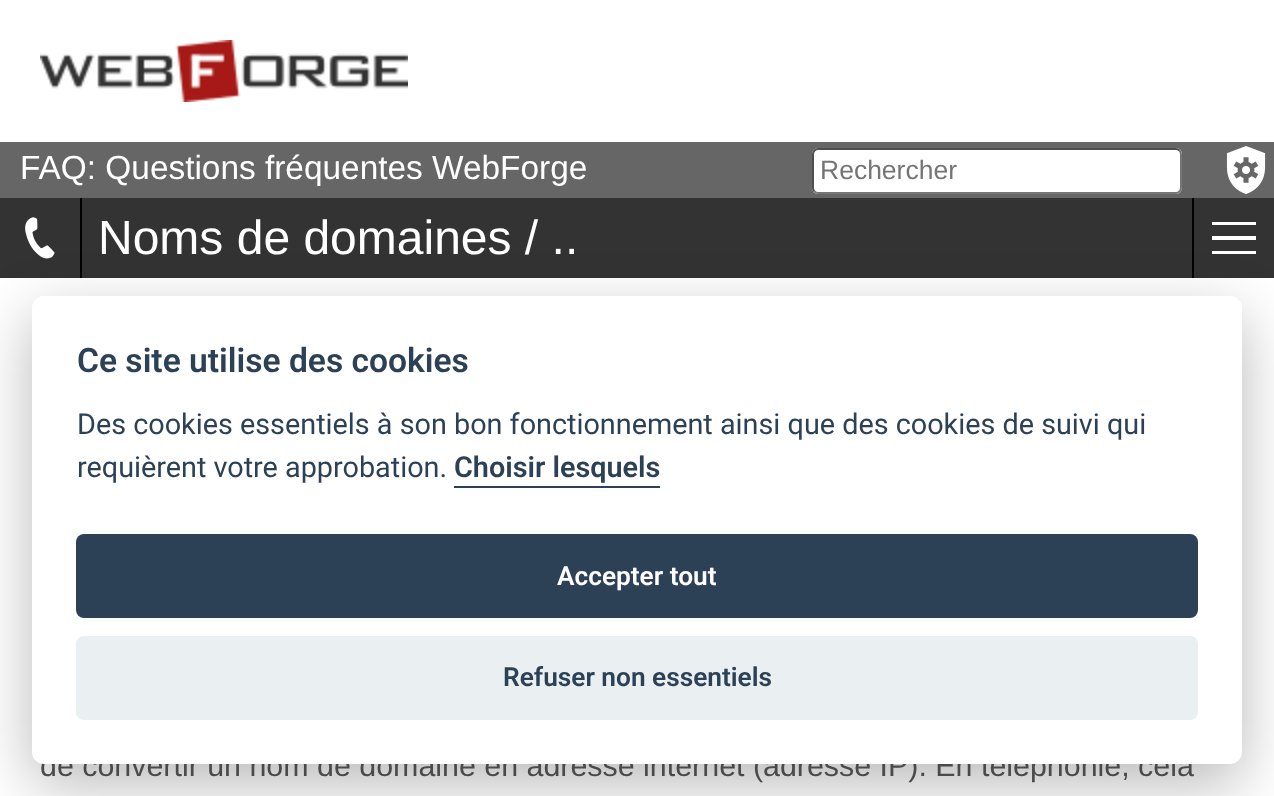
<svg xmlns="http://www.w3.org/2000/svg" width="1274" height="796">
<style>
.a{font:33.4px Liberation Sans;fill:#fff}
.b{font:26.5px Liberation Sans;fill:#757575}
.c{font:48px Liberation Sans;fill:#fff}
.d{font:30.4px Liberation Sans;fill:#4a4a4a}
.e{font:600 33.6px Roboto;fill:#2d4156}
.f{font:28.8px Roboto;fill:#2d4156}
.g{font:600 28.8px Roboto;fill:#2d4156}
.h{font:600 26.25px Roboto;fill:#fff}
.i{font:600 26.25px Roboto;fill:#2d4156}
</style>
<rect width="100%" height="100%" fill="#fff"/>
<image href="1.png" x="40" y="40" width="368" height="62"/>
<path fill="#666" d="M0 142h1274v56H0z"/>
<rect fill="#fff" x="812" y="148" width="370" height="46" rx="6"/>
<path fill="none" stroke="#767676" stroke-width="2" d="M1179.5 150.5c1 1 1.5 2 1.5 3.5v34c0 1.5-.5 2.5-1.5 3.5c-1 1-2 1.5-3.5 1.5h-358c-1.5 0-2.5-.5-3.5-1.5"/>
<path fill="none" stroke="#4f4f4f" stroke-width="2" d="M814.5 191.5c-1-1-1.5-2-1.5-3.5v-34c0-1.5 .5-2.5 1.5-3.5c1-1 2-1.5 3.5-1.5h358c1.5 0 2.5 .5 3.5 1.5"/>
<image href="2.png" x="1226" y="146" width="40" height="48"/>
<path fill="#333" d="M0 198h1274v80H0z"/>
<path fill="#000" d="M80 198h2v80H80z"/>
<image href="3.png" x="25" y="217" width="30" height="42"/>
<path fill="#000" d="M1192 198h2v80H1192z"/>
<path fill="#fff" d="M1212 222h44v3H1212z"/>
<path fill="#fff" d="M1212 236h44v4H1212z"/>
<path fill="#fff" d="M1212 251h44v3H1212z"/>
<rect fill="#02020347" filter="blur(30px)" x="32" y="316" width="1210" height="468" rx="12"/>
<text class="a" x="20" y="179">FAQ: Questions fréquentes WebForge</text>
<text class="b" x="820" y="179">Rechercher</text>
<text class="c" x="98" y="254">Noms de domaines / ..</text>
<text class="d" x="40" y="776">de convertir un nom de domaine en adresse internet (adresse IP). En téléphonie, cela</text>
<rect fill="#fff" x="32" y="296" width="1210" height="468" rx="12"/>
<text class="e" x="77" y="372">Ce site utilise des cookies</text>
<text class="f" x="77" y="434">Des cookies essentiels à son bon fonctionnement ainsi que des cookies de suivi qui</text>
<text class="f" x="77" y="477">requièrent votre approbation.</text>
<text class="g" x="454" y="477">Choisir lesquels</text>
<path fill="#2d4156" d="M454 486h206v2H454z"/>
<rect fill="#2d4156" x="76" y="534" width="1122" height="84" rx="8"/>
<text class="h" x="557" y="585">Accepter tout</text>
<rect fill="#eaeff2" x="76" y="636" width="1122" height="84" rx="8"/>
<text class="i" x="503" y="686">Refuser non essentiels</text>
</svg>
